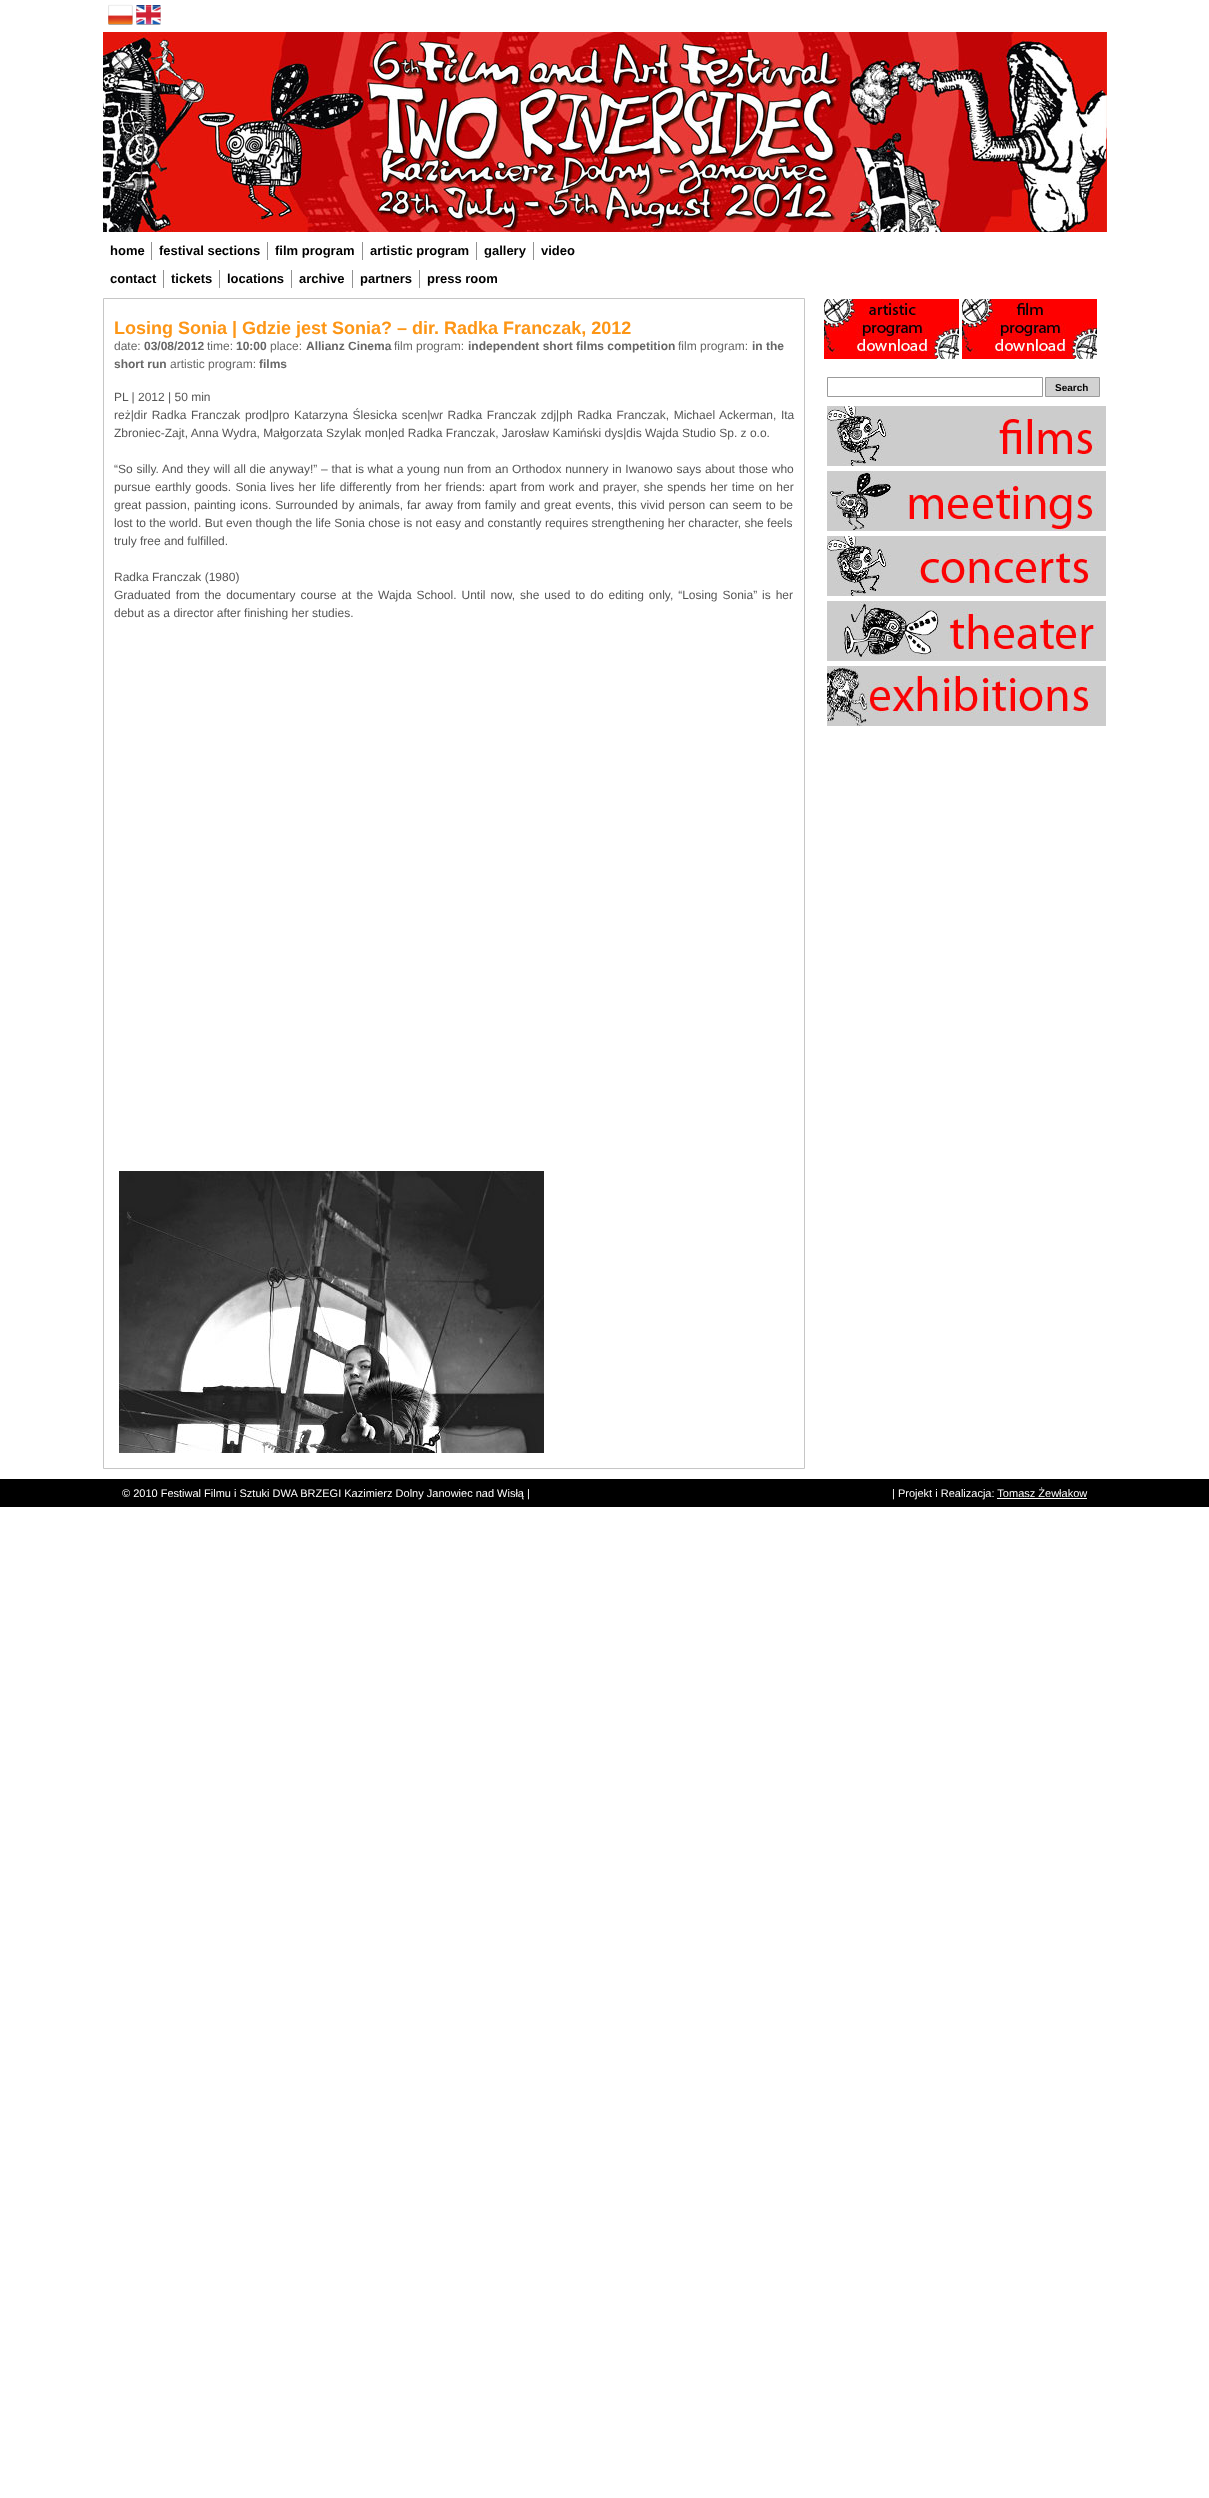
<svg xmlns="http://www.w3.org/2000/svg" width="1209" height="2498">
<style>
.a{font:bold 13px Liberation Sans;fill:#000}
.b{font:bold 18px Liberation Sans;fill:#fd9616}
.c{font:12px Liberation Sans;fill:#666}
.d{font:bold 12px Liberation Sans;fill:#666}
.e{font:12px Liberation Sans;fill:#565656}
.f{font:bold 10px Liberation Sans;fill:#000}
.g{font:11px Liberation Sans;fill:#fff}
</style>
<rect width="100%" height="100%" fill="#fff"/>
<image href="1.png" x="108" y="4" width="25" height="21"/>
<image href="2.png" x="136" y="5" width="25" height="20"/>
<image href="3.png" x="103" y="32" width="1004" height="200"/>
<path fill="#929292" d="M151 242h1v18H151z"/>
<path fill="#929292" d="M267 242h1v18H267z"/>
<path fill="#929292" d="M362 242h1v18H362z"/>
<path fill="#929292" d="M476 242h1v18H476z"/>
<path fill="#929292" d="M533 242h1v18H533z"/>
<path fill="#929292" d="M163 270h1v18H163z"/>
<path fill="#929292" d="M219 270h1v18H219z"/>
<path fill="#929292" d="M291 270h1v18H291z"/>
<path fill="#929292" d="M352 270h1v18H352z"/>
<path fill="#929292" d="M419 270h1v18H419z"/>
<path fill="none" stroke="#c6c6c6" d="M103.5 298.5h701v1170H103.5z"/>
<image href="4.png" x="119" y="1171" width="425" height="282"/>
<image href="5.png" x="824" y="299" width="135" height="60"/>
<image href="6.png" x="962" y="299" width="135" height="60"/>
<path fill="none" stroke="#9b9b9b" d="M827.5 377.5h215v19H827.5z"/>
<path fill="#d2d2d2" stroke="#9b9b9b" d="M1045.5 377.5h54v19H1045.5z"/>
<image href="7.png" x="827" y="406" width="279" height="60"/>
<image href="8.png" x="827" y="471" width="279" height="60"/>
<image href="9.png" x="827" y="536" width="279" height="60"/>
<image href="10.png" x="827" y="601" width="279" height="60"/>
<image href="11.png" x="827" y="666" width="279" height="60"/>
<path fill="#000" d="M0 1479h1209v28H0z"/>
<path fill="#fff" d="M997 1498h90v1H997z"/>
<text class="a" x="110" y="255">home</text>
<text class="a" x="159" y="255">festival sections</text>
<text class="a" x="275" y="255">film program</text>
<text class="a" x="370" y="255">artistic program</text>
<text class="a" x="484" y="255">gallery</text>
<text class="a" x="541" y="255">video</text>
<text class="a" x="110" y="283">contact</text>
<text class="a" x="171" y="283">tickets</text>
<text class="a" x="227" y="283">locations</text>
<text class="a" x="299" y="283">archive</text>
<text class="a" x="360" y="283">partners</text>
<text class="a" x="427" y="283">press room</text>
<text class="b" x="114" y="334">Losing Sonia | Gdzie jest Sonia? – dir. Radka Franczak, 2012</text>
<text class="c" x="114" y="350">date:</text>
<text class="d" x="144" y="350">03/08/2012</text>
<text class="c" x="207" y="350">time:</text>
<text class="d" x="236" y="350">10:00</text>
<text class="c" x="270" y="350">place:</text>
<text class="d" x="306" y="350">Allianz Cinema</text>
<text class="c" x="394" y="350">film program:</text>
<text class="d" x="468" y="350">independent short films competition</text>
<text class="c" x="678" y="350">film program:</text>
<text class="d" x="752" y="350">in the</text>
<text class="d" x="114" y="368">short run</text>
<text class="c" x="170" y="368">artistic program:</text>
<text class="d" x="259" y="368">films</text>
<text class="e" x="114" y="401">PL | 2012 | 50 min</text>
<text class="e" x="114" y="419" word-spacing="1.25">reż|dir Radka Franczak prod|pro Katarzyna Ślesicka scen|wr Radka Franczak zdj|ph Radka Franczak, Michael Ackerman, Ita</text>
<text class="e" x="114" y="437">Zbroniec-Zajt, Anna Wydra, Małgorzata Szylak mon|ed Radka Franczak, Jarosław Kamiński dys|dis Wajda Studio Sp. z o.o.</text>
<text class="e" x="114" y="473" word-spacing="0.4">“So silly. And they will all die anyway!” – that is what a young nun from an Orthodox nunnery in Iwanowo says about those who</text>
<text class="e" x="114" y="491" word-spacing="0.9">pursue earthly goods. Sonia lives her life differently from her friends: apart from work and prayer, she spends her time on her</text>
<text class="e" x="114" y="509" word-spacing="0.6">great passion, painting icons. Surrounded by animals, far away from family and great events, this vivid person can seem to be</text>
<text class="e" x="114" y="527">lost to the world. But even though the life Sonia chose is not easy and constantly requires strengthening her character, she feels</text>
<text class="e" x="114" y="545">truly free and fulfilled.</text>
<text class="e" x="114" y="581">Radka Franczak (1980)</text>
<text class="e" x="114" y="599" word-spacing="1.6">Graduated from the documentary course at the Wajda School. Until now, she used to do editing only, “Losing Sonia” is her</text>
<text class="e" x="114" y="617">debut as a director after finishing her studies.</text>
<text class="f" x="1055" y="391">Search</text>
<text class="g" x="122" y="1497">© 2010 Festiwal Filmu i Sztuki DWA BRZEGI Kazimierz Dolny Janowiec nad Wisłą |</text>
<text class="g" x="892" y="1497">| Projekt i Realizacja: Tomasz Żewłakow</text>
</svg>
